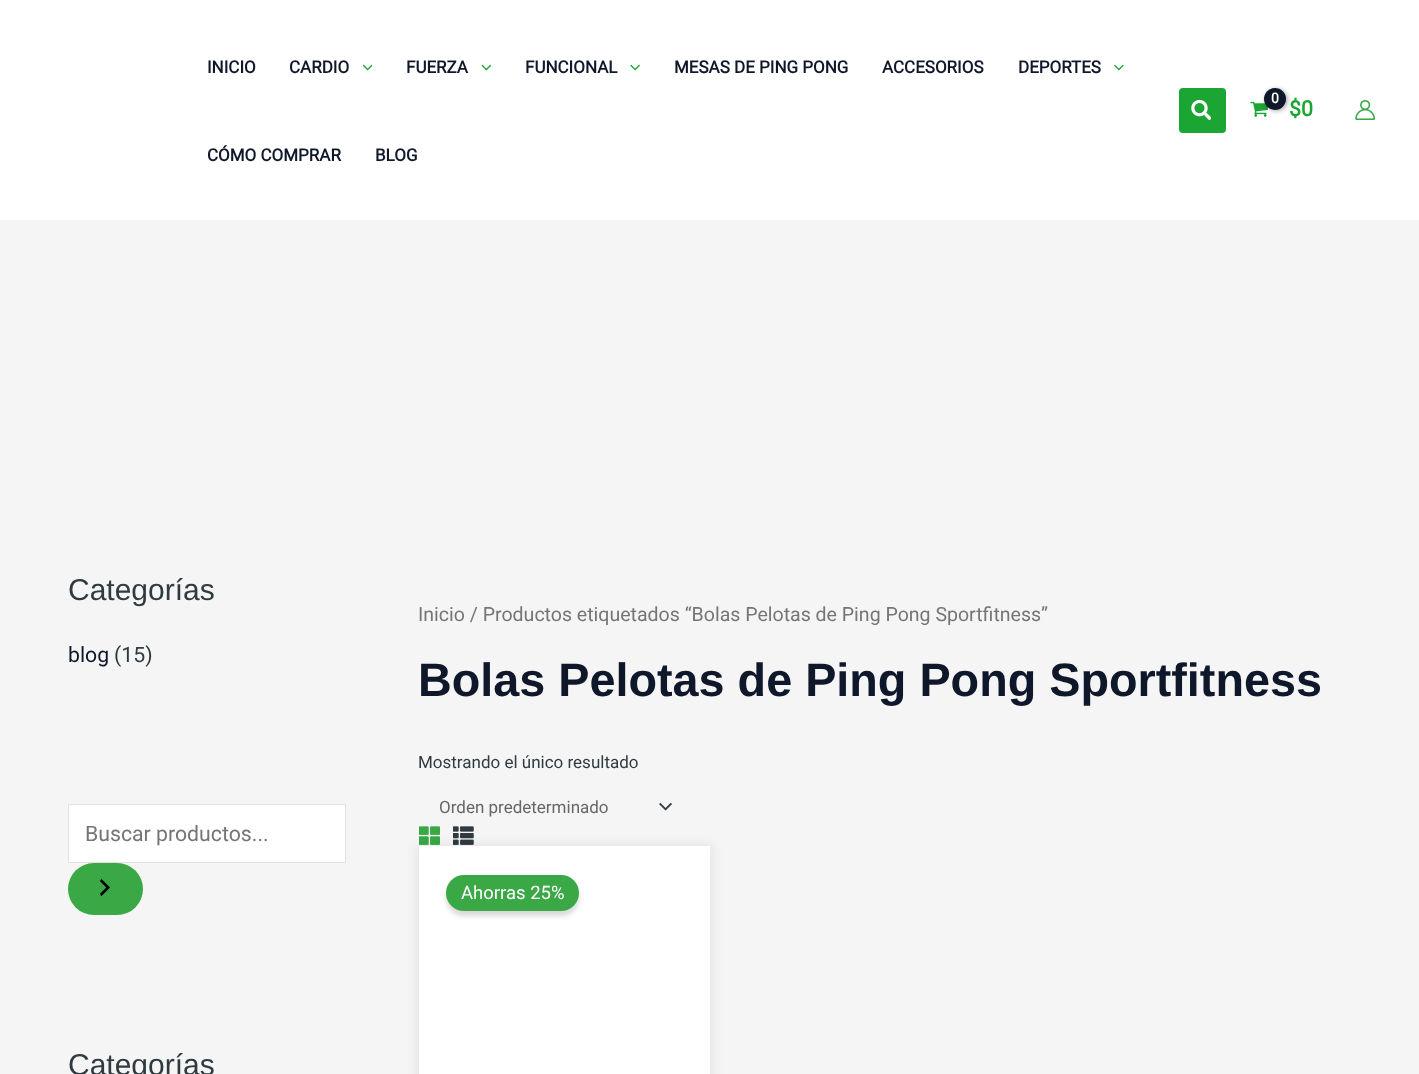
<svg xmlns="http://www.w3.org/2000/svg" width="1419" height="1074">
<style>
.a{font:bold 17px Roboto;fill:#0f172a}
.b{font:bold 14px Roboto;letter-spacing:-1px;fill:#fff}
.c{font:bold 21.25px Roboto;fill:#1ba533}
.d{font:30px Liberation Sans;fill:#2f3b40}
.e{font:21.25px Roboto;fill:#0f172a}
.f{font:21.25px Roboto;fill:#2f3b40}
.g{font:21.25px Roboto;fill:#757575}
.h{font:19.55px Roboto;fill:#757575}
.i{font:bold 46.75px Liberation Sans;fill:#0f172a}
.j{font:17px Roboto;fill:#2f3b40}
.k{font:17px Roboto;fill:#666}
.l{font:18.5px Roboto;fill:#fff}
</style>
<rect width="100%" height="100%" fill="#f5f5f5"/>
<path fill="#fff" d="M0 0h1419v220H0z"/>
<image href="1.png" x="363" y="64" width="10" height="7"/>
<image href="2.png" x="481" y="64" width="10" height="7"/>
<image href="3.png" x="630" y="64" width="10" height="7"/>
<image href="4.png" x="1114" y="64" width="10" height="7"/>
<rect fill="#1ba533" x="1179" y="88" width="47" height="45" rx="4"/>
<image href="5.png" x="1191" y="99" width="20" height="22"/>
<image href="6.png" x="1250" y="101" width="18" height="16"/>
<rect fill="#0000004d" filter="blur(2px)" x="1265" y="89" width="23" height="22" rx="11"/>
<circle fill="#0f172a" cx="1275" cy="99" r="11"/>
<image href="7.png" x="1355" y="100" width="21" height="20"/>
<path fill="#fff" stroke="#e2e2e2" d="M68.5 804.5h277v58H68.5z"/>
<rect fill="#39a845" x="68" y="863" width="75" height="52" rx="26"/>
<image href="8.png" x="100" y="878" width="10" height="19"/>
<image href="9.png" x="659" y="803" width="13" height="8"/>
<image href="10.png" x="419" y="826" width="21" height="19"/>
<image href="11.png" x="453" y="826" width="21" height="19"/>
<path fill="#21212114" filter="blur(5px)" d="M416 844h297v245H416z"/>
<path fill="#fff" d="M419 846h291v228H419z"/>
<rect fill="#00000026" filter="blur(2.5px)" x="446" y="880" width="133" height="36" rx="18"/>
<rect fill="#39a845" x="446" y="875" width="133" height="36" rx="18"/>
<text class="a" x="207" y="73">INICIO</text>
<text class="a" x="289" y="73">CARDIO</text>
<text class="a" x="406" y="73">FUERZA</text>
<text class="a" x="525" y="73">FUNCIONAL</text>
<text class="a" x="674" y="73">MESAS DE PING PONG</text>
<text class="a" x="882" y="73">ACCESORIOS</text>
<text class="a" x="1018" y="73">DEPORTES</text>
<text class="a" x="207" y="161">CÓMO COMPRAR</text>
<text class="a" x="375" y="161">BLOG</text>
<text class="b" x="1271" y="103">0</text>
<text class="c" x="1289" y="116">$0</text>
<text class="d" x="68" y="600">Categorías</text>
<text class="e" x="68" y="662">blog</text>
<text class="f" x="114" y="662">(15)</text>
<text class="g" x="85" y="841">Buscar productos...</text>
<text class="d" x="68" y="1075">Categorías</text>
<text class="h" x="418" y="621">Inicio / Productos etiquetados “Bolas Pelotas de Ping Pong Sportfitness”</text>
<text class="i" x="418" y="696">Bolas Pelotas de Ping Pong Sportfitness</text>
<text class="j" x="418" y="768">Mostrando el único resultado</text>
<text class="k" x="439" y="813">Orden predeterminado</text>
<text class="l" x="461" y="899">Ahorras 25%</text>
</svg>
